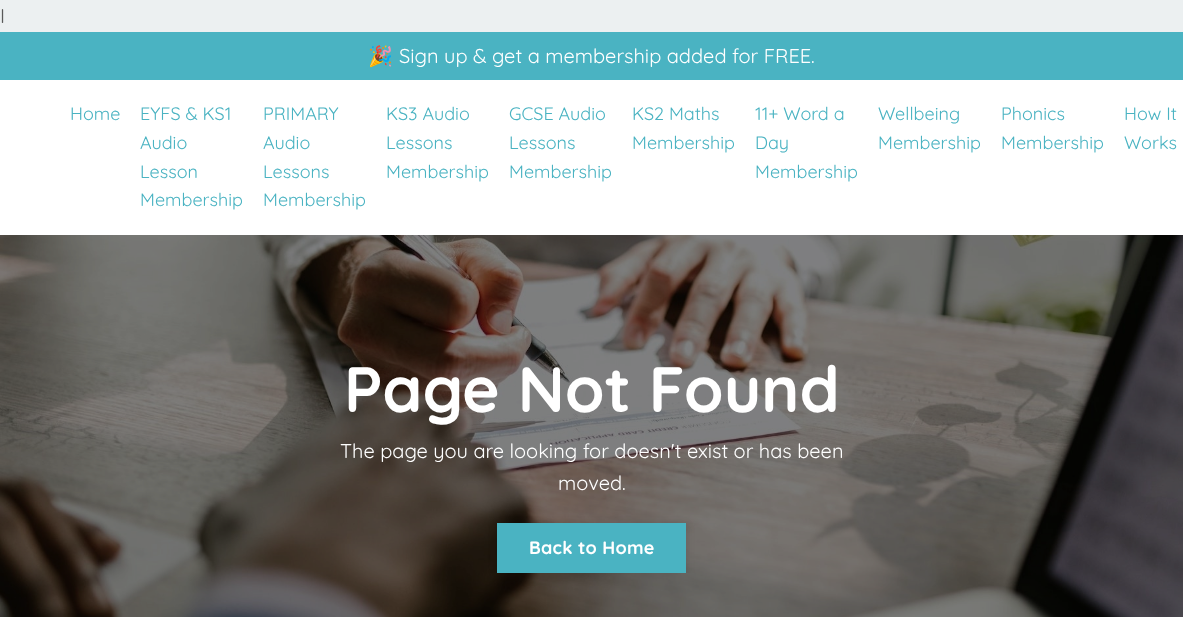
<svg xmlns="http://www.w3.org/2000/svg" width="1183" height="617">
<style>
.a{font:20px Quicksand;fill:#595959}
.b{font:20px Noto Color Emoji;fill:#fff}
.c{font:20px Quicksand;fill:#fff}
.d{font:18px Quicksand;fill:#4ab3c2}
.e{font:bold 64px Quicksand;fill:#fff}
.f{font:bold 18px Quicksand;letter-spacing:0.25px;fill:#fff}
</style>
<defs>
<clipPath id="clip1"><rect x="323" y="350" width="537" height="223" rx="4"/></clipPath>
</defs>
<rect width="100%" height="100%" fill="#ecf0f1"/>
<path fill="#fff" d="M0 80h1183v155H0z"/>
<path fill="#4ab3c2" d="M0 32h1183v48H0z"/>
<image href="1.png" x="0" y="235" width="1183" height="382"/>
<g clip-path="url(#clip1)">
<path fill="#0000001a" filter="blur(5px)" d="M497 525h189v50H497z"/>
</g>
<path fill="#4ab3c2" d="M497 523h189v50H497z"/>
<text class="a" x="0" y="23">I</text>
<text class="b" x="368" y="63">🎉</text>
<text class="c" x="399" y="63">Sign up &amp; get a membership added for FREE.</text>
<text class="d" x="70" y="120">Home</text>
<text class="d" x="140" y="120">EYFS &amp; KS1</text>
<text class="d" x="140" y="149">Audio</text>
<text class="d" x="140" y="178">Lesson</text>
<text class="d" x="140" y="206">Membership</text>
<text class="d" x="263" y="120">PRIMARY</text>
<text class="d" x="263" y="149">Audio</text>
<text class="d" x="263" y="178">Lessons</text>
<text class="d" x="263" y="206">Membership</text>
<text class="d" x="386" y="120">KS3 Audio</text>
<text class="d" x="386" y="149">Lessons</text>
<text class="d" x="386" y="178">Membership</text>
<text class="d" x="509" y="120">GCSE Audio</text>
<text class="d" x="509" y="149">Lessons</text>
<text class="d" x="509" y="178">Membership</text>
<text class="d" x="632" y="120">KS2 Maths</text>
<text class="d" x="632" y="149">Membership</text>
<text class="d" x="755" y="120">11+ Word a</text>
<text class="d" x="755" y="149">Day</text>
<text class="d" x="755" y="178">Membership</text>
<text class="d" x="878" y="120">Wellbeing</text>
<text class="d" x="878" y="149">Membership</text>
<text class="d" x="1001" y="120">Phonics</text>
<text class="d" x="1001" y="149">Membership</text>
<text class="d" x="1124" y="120">How It</text>
<text class="d" x="1124" y="149">Works</text>
<text class="e" x="344" y="412">Page Not Found</text>
<text class="c" x="340" y="458">The page you are looking for doesn't exist or has been</text>
<text class="c" x="558" y="490">moved.</text>
<text class="f" x="529" y="554">Back to Home</text>
</svg>
